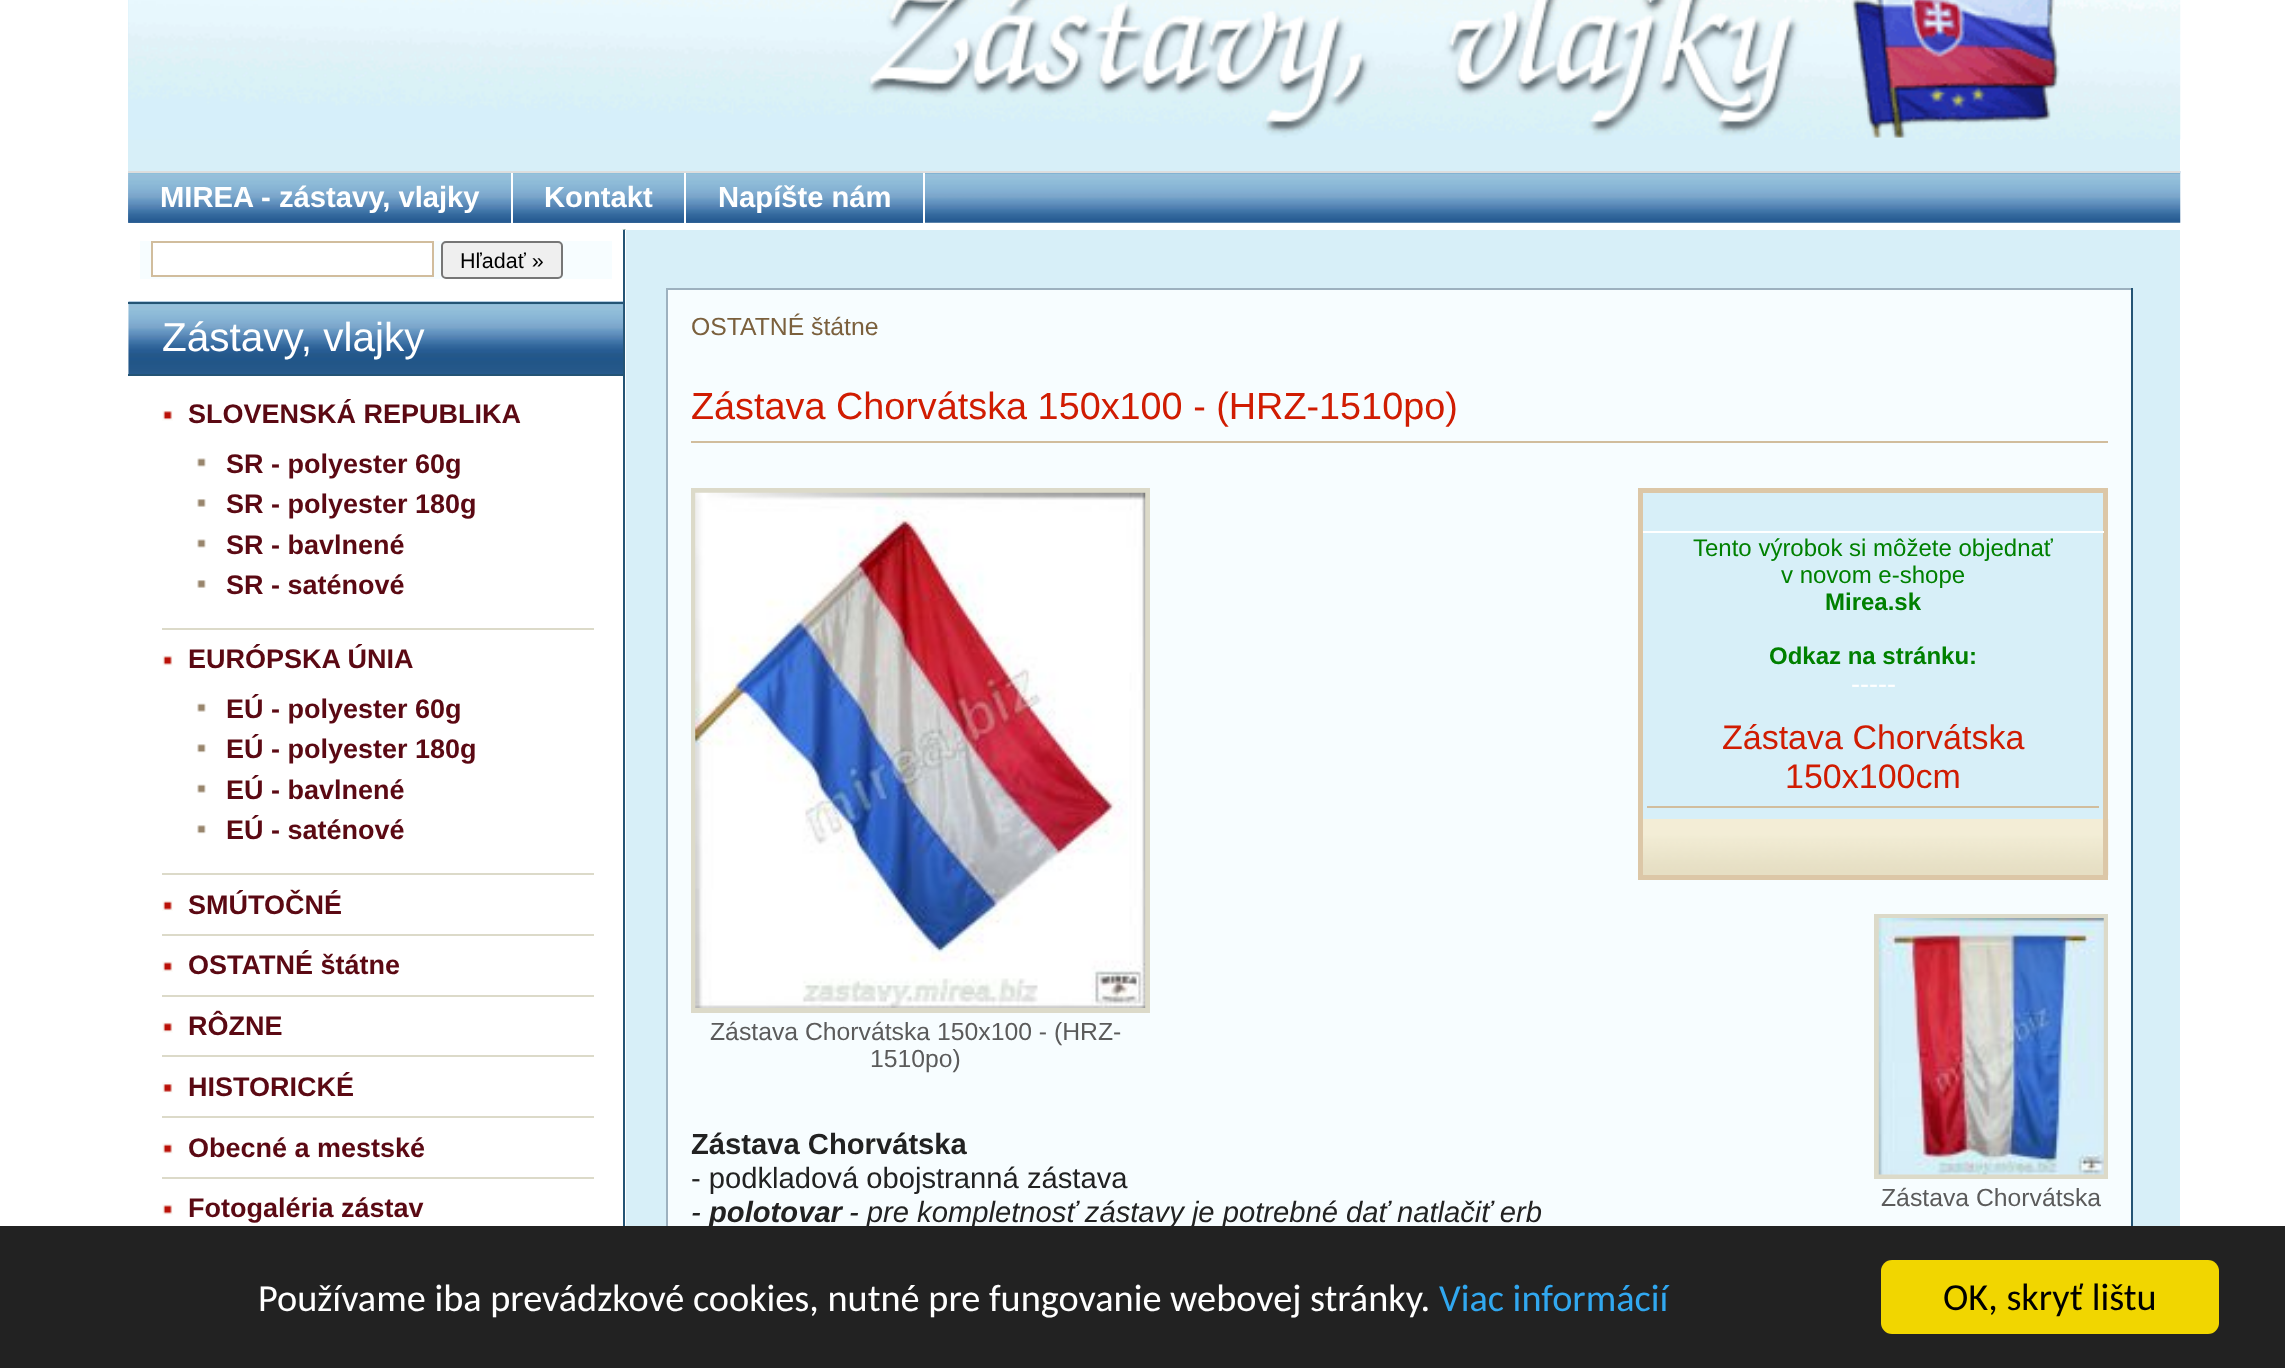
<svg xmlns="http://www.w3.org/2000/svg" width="2285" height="1368">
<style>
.a{font:bold 29.2px Liberation Sans;fill:#fff}
.b{font:21.5px Liberation Sans;fill:#000}
.c{font:40.5px Liberation Sans;fill:#fff}
.d{font:bold 27px Liberation Sans;fill:#5b0913}
.e{font:24.75px Liberation Sans;fill:#7b603d}
.f{font:37.8px Liberation Sans;fill:#d01c02}
.g{font:24px Liberation Sans;fill:#008000}
.h{font:bold 24px Liberation Sans;fill:#008000}
.i{font:27px Liberation Sans;fill:#fff}
.j{font:34px Liberation Sans;fill:#d01c02}
.k{font:24.75px Liberation Sans;fill:#5b5b5b}
.l{font:bold 29.2px Liberation Sans;fill:#222}
.m{font:29.2px Liberation Sans;fill:#222}
.n{font:italic 29.2px Liberation Sans;fill:#222}
.o{font:italic bold 29.2px Liberation Sans;fill:#222}
.p{font:38.25px Carlito;fill:#fff}
.q{font:38.25px Carlito;fill:#31a8f0}
.r{font:38.25px Carlito;fill:#000}
</style>
<rect width="100%" height="100%" fill="#fff"/>
<path fill="#d7eff8" d="M128 0h2052v171H128z"/>
<image href="1.png" x="128" y="0" width="2053" height="140"/>
<image href="2.png" x="128" y="171" width="2053" height="52"/>
<path fill="#ddd" d="M128 171h2052v2H128z"/>
<image href="3.png" x="128" y="173" width="383" height="50"/>
<path fill="#fff" d="M511 173h2v50H511z"/>
<image href="4.png" x="513" y="173" width="174" height="50"/>
<path fill="#fff" d="M684 173h2v50H684z"/>
<image href="5.png" x="686" y="173" width="237" height="50"/>
<path fill="#fff" d="M923 173h2v50H923z"/>
<path fill="#d7eff8" d="M626 230h1554v996H626z"/>
<image href="6.png" x="128" y="229" width="498" height="1"/>
<path fill="#245475" d="M623 230h2v996H623z"/>
<path fill="#f7fdff" d="M140 241h472v38H140z"/>
<path fill="#fff" stroke="#d1bd9d" stroke-width="2" d="M152 242h281v34H152z"/>
<rect fill="#efefef" stroke="#767676" stroke-width="2" x="442" y="242" width="120" height="36" rx="4"/>
<image href="7.png" x="128" y="301" width="496" height="75"/>
<path fill="#245475" d="M128 302h495v2H128z"/>
<path fill="#245475" d="M128 374h495v2H128z"/>
<image href="8.png" x="162" y="410" width="11" height="11"/>
<image href="9.png" x="197" y="458" width="9" height="9"/>
<image href="10.png" x="197" y="499" width="9" height="8"/>
<image href="9.png" x="197" y="539" width="9" height="9"/>
<image href="10.png" x="197" y="580" width="9" height="8"/>
<image href="11.png" x="162" y="655" width="11" height="11"/>
<path fill="#dcdac9" d="M162 628h432v2H162z"/>
<image href="12.png" x="197" y="703" width="9" height="9"/>
<image href="13.png" x="197" y="744" width="9" height="9"/>
<image href="12.png" x="197" y="784" width="9" height="9"/>
<image href="13.png" x="197" y="825" width="9" height="9"/>
<image href="14.png" x="162" y="900" width="11" height="11"/>
<path fill="#dcdac9" d="M162 873h432v2H162z"/>
<image href="11.png" x="162" y="961" width="11" height="11"/>
<path fill="#dcdac9" d="M162 934h432v2H162z"/>
<image href="8.png" x="162" y="1022" width="11" height="11"/>
<path fill="#dcdac9" d="M162 995h432v2H162z"/>
<image href="15.png" x="162" y="1082" width="11" height="11"/>
<path fill="#dcdac9" d="M162 1055h432v2H162z"/>
<image href="14.png" x="162" y="1143" width="11" height="11"/>
<path fill="#dcdac9" d="M162 1116h432v2H162z"/>
<image href="11.png" x="162" y="1204" width="11" height="11"/>
<path fill="#dcdac9" d="M162 1177h432v2H162z"/>
<path fill="#f7fdff" d="M668 290h1463v936H668z"/>
<path fill="#9db1bf" d="M666 288h1467v2H666z"/>
<path fill="#245475" d="M2131 288h2v938H2131z"/>
<path fill="#9db1bf" d="M666 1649v-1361l2 2v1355z"/>
<path fill="#d1bd9d" d="M691 441h1417v2H691z"/>
<path fill="#d7eff8" d="M1643 493h460v326H1643z"/>
<image href="16.png" x="1643" y="819" width="466" height="57"/>
<path fill="none" stroke="#dcc7a7" stroke-width="5" d="M1640.5 490.5h465v387H1640.5z"/>
<path fill="#fff" d="M1643 531h461v2H1643z"/>
<path fill="#d1bd9d" d="M1647 806h452v2H1647z"/>
<path fill="none" stroke="#dcdac9" stroke-width="5" d="M693.5 490.5h454v520H693.5z"/>
<image href="17.png" x="695" y="492" width="451" height="516"/>
<path fill="none" stroke="#dcdac9" stroke-width="5" d="M1876.5 916.5h229v260H1876.5z"/>
<image href="18.png" x="1878" y="918" width="226" height="257"/>
<path fill="#222" d="M0 1226h2285v142H0z"/>
<rect fill="#f1d600" x="1881" y="1260" width="338" height="74" rx="11"/>
<text class="a" x="160" y="207">MIREA - zástavy, vlajky</text>
<text class="a" x="544" y="207">Kontakt</text>
<text class="a" x="718" y="207">Napíšte nám</text>
<text class="b" x="460" y="268">Hľadať »</text>
<text class="c" x="162" y="351">Zástavy, vlajky</text>
<text class="d" x="188" y="423">SLOVENSKÁ REPUBLIKA</text>
<text class="d" x="226" y="473">SR - polyester 60g</text>
<text class="d" x="226" y="513">SR - polyester 180g</text>
<text class="d" x="226" y="554">SR - bavlnené</text>
<text class="d" x="226" y="594">SR - saténové</text>
<text class="d" x="188" y="668">EURÓPSKA ÚNIA</text>
<text class="d" x="226" y="718">EÚ - polyester 60g</text>
<text class="d" x="226" y="758">EÚ - polyester 180g</text>
<text class="d" x="226" y="799">EÚ - bavlnené</text>
<text class="d" x="226" y="839">EÚ - saténové</text>
<text class="d" x="188" y="914">SMÚTOČNÉ</text>
<text class="d" x="188" y="974">OSTATNÉ štátne</text>
<text class="d" x="188" y="1035">RÔZNE</text>
<text class="d" x="188" y="1096">HISTORICKÉ</text>
<text class="d" x="188" y="1157">Obecné a mestské</text>
<text class="d" x="188" y="1217">Fotogaléria zástav</text>
<text class="e" x="691" y="335">OSTATNÉ štátne</text>
<text class="f" x="691" y="419">Zástava Chorvátska 150x100 - (HRZ-1510po)</text>
<text class="g" x="1693" y="556">Tento výrobok si môžete objednať</text>
<text class="g" x="1781" y="583">v novom e-shope</text>
<text class="h" x="1825" y="610">Mirea.sk</text>
<text class="h" x="1769" y="664">Odkaz na stránku:</text>
<text class="i" x="1851" y="693">-----</text>
<text class="j" x="1722" y="749">Zástava Chorvátska</text>
<text class="j" x="1785" y="788">150x100cm</text>
<text class="k" x="710" y="1040">Zástava Chorvátska 150x100 - (HRZ-</text>
<text class="k" x="870" y="1067">1510po)</text>
<text class="l" x="691" y="1154">Zástava Chorvátska</text>
<text class="m" x="691" y="1188">- podkladová obojstranná zástava</text>
<text class="n" x="691" y="1222">-</text>
<text class="o" x="709" y="1222">polotovar</text>
<text class="n" x="849" y="1222">- pre kompletnosť zástavy je potrebné dať natlačiť erb</text>
<text class="k" x="1881" y="1206">Zástava Chorvátska</text>
<text class="p" x="258" y="1311">Používame iba prevádzkové cookies, nutné pre fungovanie webovej stránky.</text>
<text class="q" x="1439" y="1311">Viac informácií</text>
<text class="r" x="1943" y="1310">OK, skryť lištu</text>
</svg>
